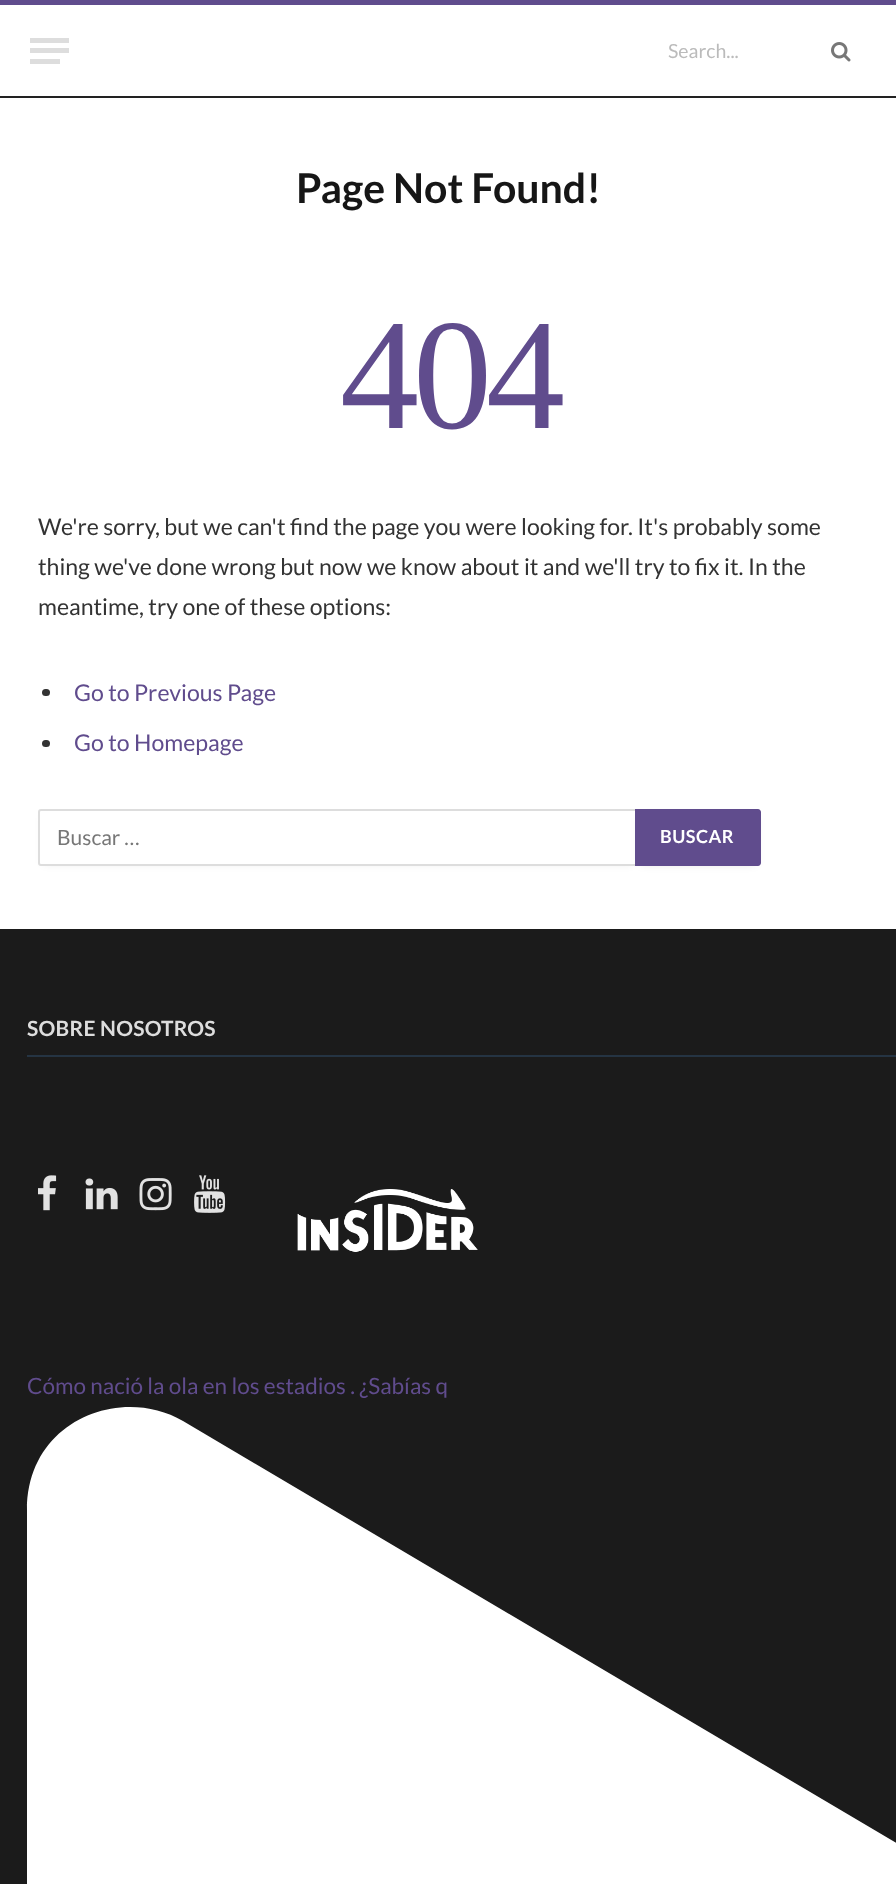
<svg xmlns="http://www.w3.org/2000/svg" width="896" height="1884">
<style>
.a{font:19.5px Lato;fill:#bbb}
.b{font:bold 41px Lato;fill:#161616}
.c{font:158px Liberation Serif;letter-spacing:-6px;fill:#604c8d}
.d{font:23.05px Lato;fill:#333}
.e{font:23.05px Lato;fill:#604c8d}
.f{font:21px Lato;fill:#777}
.g{font:bold 18px Lato;letter-spacing:0.5px;fill:#fff}
.h{font:bold 21px Lato;letter-spacing:0.25px;fill:#ddd}
.i{font:22.5px Lato;fill:#604c8d}
</style>
<rect width="100%" height="100%" fill="#fff"/>
<path fill="#604c8d" d="M0 0h896v5H0z"/>
<path fill="#222" d="M0 96h896v2H0z"/>
<path fill="#ddd" d="M30 59h30v5H30z"/>
<path fill="#ddd" d="M30 38h39v5H30z"/>
<path fill="#ddd" d="M30 48h39v5H30z"/>
<image href="1.png" x="831" y="42" width="20" height="20"/>
<rect fill="#333" x="42" y="689" width="8" height="7" rx="3.5"/>
<rect fill="#333" x="42" y="740" width="8" height="7" rx="3.5"/>
<path fill="#0000001a" filter="blur(5px)" d="M44 818h588v45H44z"/>
<rect fill="#fff" stroke="#ddd" stroke-width="2" x="39" y="810" width="598" height="55" rx="2"/>
<path fill="#00000029" filter="blur(5px)" d="M641 818h114v45H641z"/>
<path fill="#604c8d" d="M635 809h123c1.5 0 3 1.5 3 3v51c0 1.5-1.5 3-3 3h-123z"/>
<path fill="#1b1b1b" d="M0 929h896v955H0z"/>
<path fill="#253443" d="M27 1055h869v2H27z"/>
<image href="2.png" x="38" y="1175" width="19" height="36"/>
<image href="3.png" x="85" y="1178" width="33" height="32"/>
<image href="4.png" x="139" y="1178" width="33" height="33"/>
<image href="5.png" x="194" y="1175" width="32" height="38"/>
<image href="6.png" x="297" y="1189" width="181" height="63"/>
<path fill="#fff" d="M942 1870l-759-449c-62-36-156-1-156 89v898c0 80 88 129 156 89l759-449c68-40 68-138 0-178z"/>
<text class="a" x="668" y="58">Search...</text>
<text class="b" x="296" y="203">Page Not Found!</text>
<text class="c" x="340" y="428">404</text>
<text class="d" x="38" y="535">We're sorry, but we can't find the page you were looking for. It's probably some</text>
<text class="d" x="38" y="575">thing we've done wrong but now we know about it and we'll try to fix it. In the</text>
<text class="d" x="38" y="615">meantime, try one of these options:</text>
<text class="e" x="74" y="701">Go to Previous Page</text>
<text class="e" x="74" y="751">Go to Homepage</text>
<text class="f" x="57" y="845">Buscar …</text>
<text class="g" x="660" y="843">BUSCAR</text>
<text class="h" x="27" y="1036">SOBRE NOSOTROS</text>
<text class="i" x="27" y="1394">Cómo nació la ola en los estadios . ¿Sabías q</text>
</svg>
